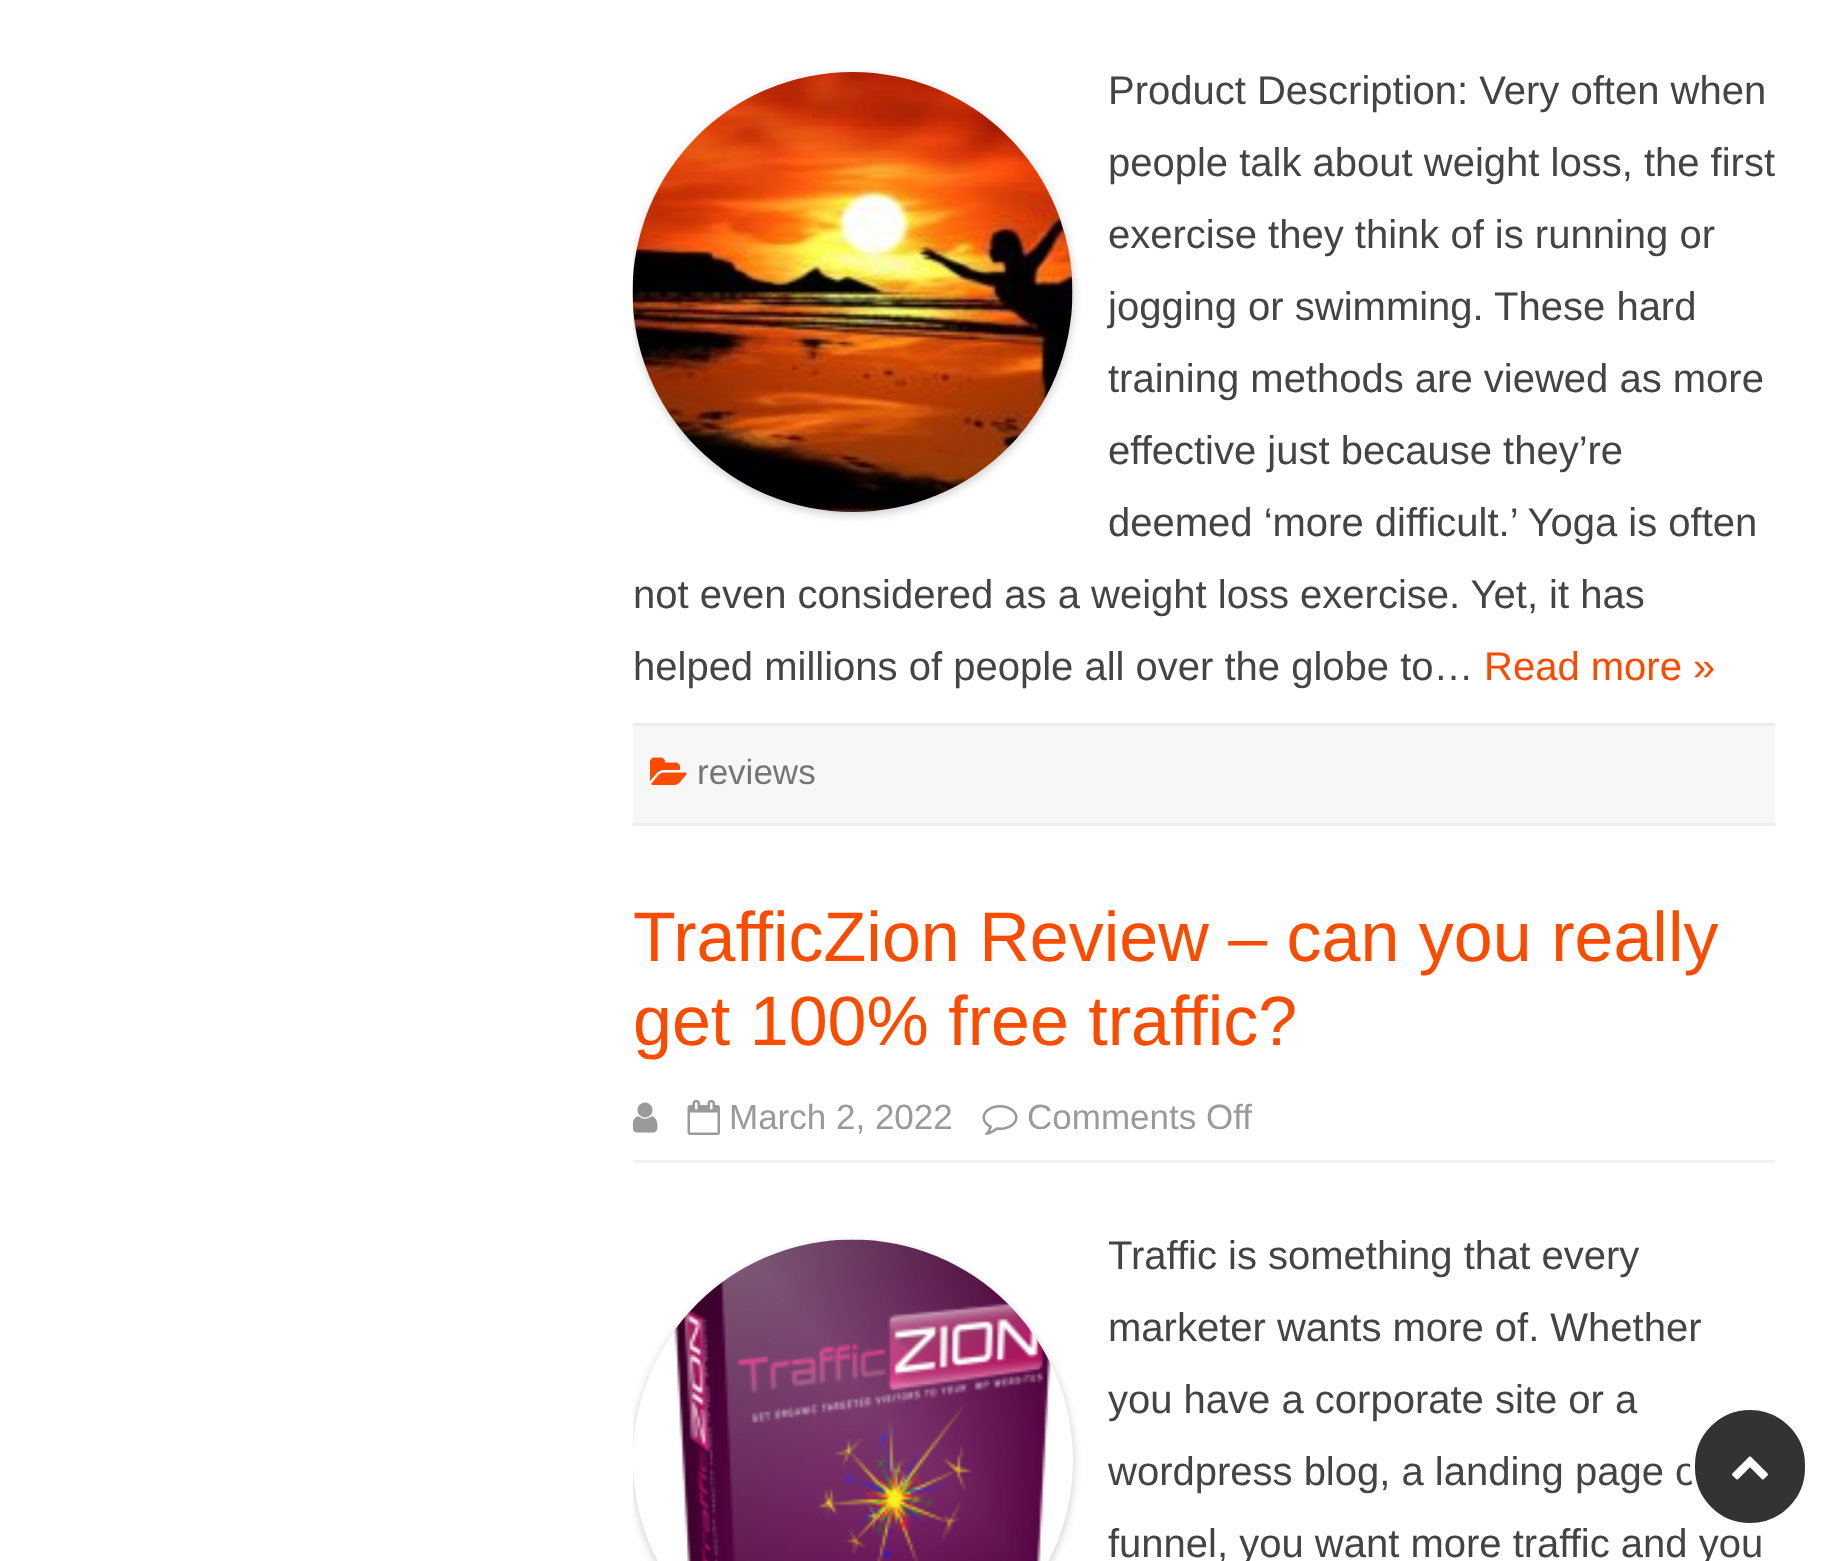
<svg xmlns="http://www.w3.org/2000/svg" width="1844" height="1561">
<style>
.a{font:40px Arimo;fill:#444}
.b{font:40px Arimo;fill:#fa4c00}
.c{font:35px Arimo;fill:#757575}
.d{font:70px Arimo;fill:#fa4c00}
.e{font:35px Arimo;fill:#9a9a9a}
</style>
<defs>
<clipPath id="clip1"><path d="M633 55h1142v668H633z"/></clipPath>
<clipPath id="clip2"><path d="M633 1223h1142v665H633z"/></clipPath>
<clipPath id="clip3"><path d="M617 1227h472v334h-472zm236 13c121.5 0 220 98.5 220 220c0 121.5-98.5 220-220 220c-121.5 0-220-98.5-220-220c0-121.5 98.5-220 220-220z" clip-rule="evenodd"/></clipPath>
</defs>
<rect width="100%" height="100%" fill="#fff"/>
<path fill="#ededed" d="M633 823h1142v3H633z"/>
<path fill="#ededed" d="M633 723h1142v3H633z"/>
<g clip-path="url(#clip1)">
<rect fill="#00000033" filter="blur(5px)" x="633" y="75" width="440" height="440" rx="220"/>
</g>
<image href="1.png" x="632" y="72" width="441" height="440"/>
<path fill="#f7f7f7" d="M633 726h1142v97H633z"/>
<image href="2.png" x="650" y="757" width="37" height="28"/>
<path fill="#f2f2f2" d="M633 1160h1142v3H633z"/>
<image href="3.png" x="633" y="1102" width="25" height="31"/>
<image href="4.png" x="687" y="1100" width="33" height="35"/>
<image href="5.png" x="982" y="1105" width="36" height="30"/>
<g clip-path="url(#clip2)">
<g clip-path="url(#clip3)">
<rect fill="#00000033" filter="blur(5px)" x="633" y="1243" width="440" height="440" rx="220"/>
</g>
</g>
<image href="6.png" x="674" y="1239" width="377" height="322"/>
<text class="a" x="1108" y="104">Product Description: Very often when</text>
<text class="a" x="1108" y="176">people talk about weight loss, the first</text>
<text class="a" x="1108" y="248">exercise they think of is running or</text>
<text class="a" x="1108" y="320">jogging or swimming. These hard</text>
<text class="a" x="1108" y="392">training methods are viewed as more</text>
<text class="a" x="1108" y="464">effective just because they’re</text>
<text class="a" x="1108" y="536">deemed ‘more difficult.’ Yoga is often</text>
<text class="a" x="633" y="608">not even considered as a weight loss exercise. Yet, it has</text>
<text class="a" x="633" y="680">helped millions of people all over the globe to…</text>
<text class="b" x="1484" y="680">Read more »</text>
<text class="c" x="697" y="784">reviews</text>
<text class="d" x="633" y="961">TrafficZion Review – can you really</text>
<text class="d" x="633" y="1045">get 100% free traffic?</text>
<text class="e" x="729" y="1129">March 2, 2022</text>
<text class="e" x="1027" y="1129">Comments Off</text>
<text class="a" x="1108" y="1269">Traffic is something that every</text>
<text class="a" x="1108" y="1341">marketer wants more of. Whether</text>
<text class="a" x="1108" y="1413">you have a corporate site or a</text>
<text class="a" x="1108" y="1485">wordpress blog, a landing page o</text>
<text class="a" x="1108" y="1557">funnel, you want more traffic and you</text>
<rect fill="#333" stroke="#fff" stroke-width="5" x="1692.5" y="1407.5" width="115" height="118" rx="57.5"/>
<image href="7.png" x="1732" y="1456" width="36" height="24"/>
</svg>
